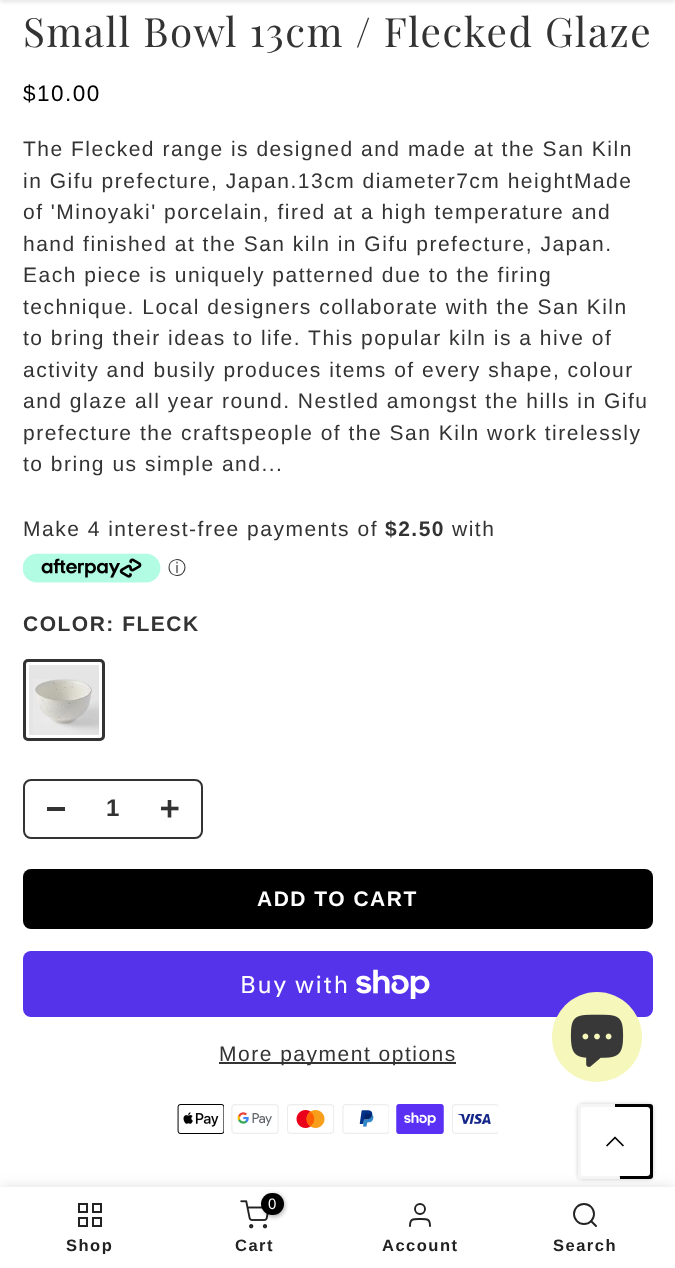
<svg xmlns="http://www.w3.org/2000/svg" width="675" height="1268">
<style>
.a{font:40.5px Playfair Display;letter-spacing:1.5px;fill:#333}
.b{font:22.5px Liberation Sans;letter-spacing:1.5px;fill:#000}
.c{font:21px Liberation Sans;letter-spacing:1.5px;fill:#333}
.d{font:bold 21px Liberation Sans;letter-spacing:1.5px;fill:#333}
.e{font:500 18px WenQuanYi Zen Hei;fill:#333}
.f{font:bold 24px Liberation Sans;fill:#333}
.g{font:bold 21px Liberation Sans;letter-spacing:1.5px;fill:#fff}
.h{font:24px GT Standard;letter-spacing:1.5px;fill:#fff}
.i{font:bold 16.5px Liberation Sans;letter-spacing:1.5px;fill:#222}
.j{font:15px Liberation Sans;fill:#fff}
</style>
<defs>
<clipPath id="clip1"><path d="M23 1238h135v16H23z"/></clipPath>
</defs>
<rect width="100%" height="100%" fill="#fff"/>
<path fill="#0000001a" filter="blur(2px)" d="M0 -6h675v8H0z"/>
<image href="1.png" x="23" y="553" width="138" height="30"/>
<rect fill="#e5e5e5" x="23" y="659" width="82" height="82" rx="5"/>
<image href="2.png" x="33" y="679" width="66" height="55"/>
<path fill="none" stroke="#fff" stroke-width="3" d="M27.5 663.5h73v73H27.5z"/>
<rect fill="none" stroke="#333" stroke-width="3" x="24.5" y="660.5" width="79" height="79" rx="3.5"/>
<rect fill="none" stroke="#333" stroke-width="2" x="24" y="780" width="178" height="58" rx="7"/>
<path fill="#333" d="M47 807h18v4H47z"/>
<image href="3.png" x="161" y="800" width="18" height="18"/>
<rect fill="#000" x="23" y="869" width="630" height="60" rx="8"/>
<rect fill="#5433eb" x="23" y="951" width="630" height="66" rx="8"/>
<image href="4.png" x="356" y="969" width="74" height="30"/>
<path fill="#333" d="M219 1062h237v2H219z"/>
<image href="5.png" x="177" y="1104" width="47" height="30"/>
<image href="6.png" x="231" y="1104" width="48" height="30"/>
<image href="7.png" x="287" y="1104" width="47" height="30"/>
<image href="8.png" x="342" y="1104" width="47" height="30"/>
<image href="9.png" x="396" y="1104" width="48" height="30"/>
<image href="10.png" x="452" y="1104" width="46" height="30"/>
<circle fill="#f5f7bb" cx="597" cy="1037" r="45"/>
<image href="11.png" x="570" y="1014" width="54" height="53"/>
<rect fill="#00000033" filter="blur(2px)" x="578" y="1104" width="75" height="75" rx="5"/>
<path fill="#0000001f" filter="blur(7px)" d="M0 1187h675v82H0z"/>
<path fill="#000" d="M615 1142l5 37h30c2 0 3-1 3-3v-69c0-2-1-3-3-3h-35z"/>
<path fill="#f5f5f5" d="M615 1142v-38h-34c-2 0-3 1-3 3v69c0 2 1 3 3 3h39z"/>
<rect fill="#fff" x="581" y="1107" width="69" height="69" rx="3"/>
<image href="12.png" x="606" y="1136" width="18" height="11"/>
<path fill="#fff" d="M0 1187h675v81H0z"/>
<path fill="none" stroke="#222" stroke-width="2" d="M79 1204h8v8H79z"/>
<path fill="none" stroke="#222" stroke-width="2" d="M93 1204h8v8H93z"/>
<path fill="none" stroke="#222" stroke-width="2" d="M79 1218h8v8H79z"/>
<path fill="none" stroke="#222" stroke-width="2" d="M93 1218h8v8H93z"/>
<image href="13.png" x="240" y="1200" width="29" height="29"/>
<rect fill="#0000004d" filter="blur(2px)" x="263" y="1194" width="22" height="23" rx="11"/>
<rect fill="#000" x="261" y="1193" width="23" height="22" rx="11"/>
<circle fill="none" stroke="#222" stroke-width="1.9" cx="420" cy="1209" r="5"/>
<path fill="none" stroke="#222" stroke-width="1.9" stroke-linecap="round" stroke-linejoin="round" d="M430 1226c0-7.5-3-7-10-7c-7 0-10-.5-10 7"/>
<circle fill="none" stroke="#222" stroke-width="1.9" cx="584" cy="1214" r="10"/>
<path fill="none" stroke="#222" stroke-width="1.9" stroke-linecap="round" stroke-linejoin="round" d="M596 1226l-5-5"/>
<text class="a" x="23" y="47">Small Bowl 13cm / Flecked Glaze</text>
<text class="b" x="23" y="101">$10.00</text>
<text class="c" x="23" y="156">The Flecked range is designed and made at the San Kiln</text>
<text class="c" x="23" y="188">in Gifu prefecture, Japan.13cm diameter7cm heightMade</text>
<text class="c" x="23" y="219">of 'Minoyaki' porcelain, fired at a high temperature and</text>
<text class="c" x="23" y="251">hand finished at the San kiln in Gifu prefecture, Japan.</text>
<text class="c" x="23" y="282">Each piece is uniquely patterned due to the firing</text>
<text class="c" x="23" y="314">technique. Local designers collaborate with the San Kiln</text>
<text class="c" x="23" y="345">to bring their ideas to life. This popular kiln is a hive of</text>
<text class="c" x="23" y="377">activity and busily produces items of every shape, colour</text>
<text class="c" x="23" y="408">and glaze all year round. Nestled amongst the hills in Gifu</text>
<text class="c" x="23" y="440">prefecture the craftspeople of the San Kiln work tirelessly</text>
<text class="c" x="23" y="471">to bring us simple and...</text>
<text class="c" x="23" y="536">Make 4 interest-free payments of</text>
<text class="d" x="385" y="536">$2.50</text>
<text class="c" x="452" y="536">with</text>
<text class="e" x="168" y="574">ⓘ</text>
<text class="d" x="23" y="631">COLOR: FLECK</text>
<text class="f" x="106" y="816">1</text>
<text class="g" x="257" y="906">ADD TO CART</text>
<text class="h" x="240" y="993">Buy with</text>
<text class="c" x="219" y="1061">More payment options</text>
<g clip-path="url(#clip1)">
<text class="i" x="66" y="1251">Shop</text>
</g>
<text class="j" x="268" y="1209">0</text>
<text class="i" x="235" y="1251">Cart</text>
<text class="i" x="382" y="1251">Account</text>
<text class="i" x="553" y="1251">Search</text>
</svg>
